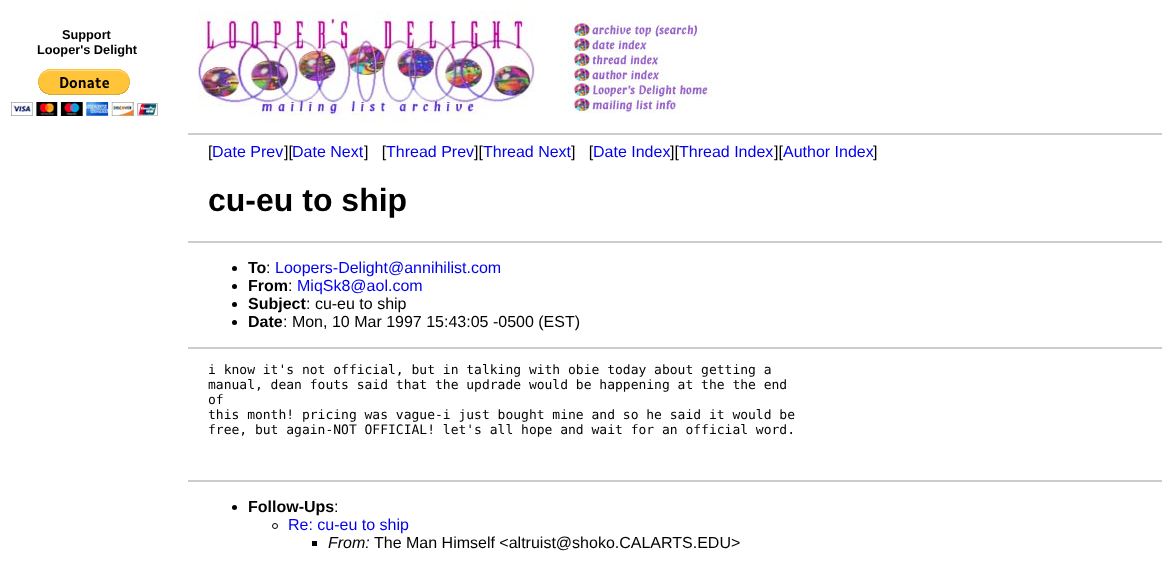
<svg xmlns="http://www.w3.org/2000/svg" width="1170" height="567">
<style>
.a{font:bold 12.75px Liberation Sans;fill:#000}
.b{font:16px Liberation Sans;fill:#000}
.c{font:16px Liberation Sans;fill:#00e}
.d{font:bold 32px Liberation Sans;fill:#000}
.e{font:bold 16px Liberation Sans;fill:#000}
.f{font:13px DejaVu Sans Mono;fill:#000}
.g{font:italic 16px Liberation Sans;fill:#000}
</style>
<rect width="100%" height="100%" fill="#fff"/>
<image href="1.png" x="11" y="69" width="147" height="47"/>
<image href="2.png" x="197" y="11" width="338" height="111"/>
<image href="3.png" x="568" y="19" width="136" height="18"/>
<image href="4.png" x="568" y="37" width="80" height="15"/>
<image href="5.png" x="568" y="52" width="96" height="15"/>
<image href="6.png" x="568" y="67" width="96" height="15"/>
<image href="7.png" x="568" y="82" width="144" height="15"/>
<image href="8.png" x="568" y="97" width="112" height="16"/>
<path fill="#ccc" d="M188 133h974v2H188z"/>
<path fill="#ccc" d="M188 241h974v2H188z"/>
<circle fill="#000" cx="234.5" cy="268.5" r="2.5"/>
<circle fill="#000" cx="234.5" cy="286.5" r="2.5"/>
<circle fill="#000" cx="234.5" cy="304.5" r="2.5"/>
<circle fill="#000" cx="234.5" cy="322.5" r="2.5"/>
<path fill="#ccc" d="M188 347h974v2H188z"/>
<path fill="#ccc" d="M188 480h974v2H188z"/>
<circle fill="#000" cx="234.5" cy="507.5" r="2.5"/>
<circle fill="none" stroke="#000" cx="275" cy="526" r="2.5"/>
<path fill="#000" d="M312 541h5v5H312z"/>
<text class="a" x="62" y="39">Support</text>
<text class="a" x="37" y="54">Looper's Delight</text>
<text class="b" x="208" y="157">[</text>
<text class="c" x="212" y="157">Date Prev</text>
<text class="b" x="284" y="157">][</text>
<text class="c" x="292" y="157">Date Next</text>
<text class="b" xml:space="preserve" x="364" y="157">]   [</text>
<text class="c" x="386" y="157">Thread Prev</text>
<text class="b" x="474" y="157">][</text>
<text class="c" x="483" y="157">Thread Next</text>
<text class="b" xml:space="preserve" x="571" y="157">]   [</text>
<text class="c" x="593" y="157">Date Index</text>
<text class="b" x="670" y="157">][</text>
<text class="c" x="679" y="157">Thread Index</text>
<text class="b" x="774" y="157">][</text>
<text class="c" x="783" y="157">Author Index</text>
<text class="b" x="873" y="157">]</text>
<text class="d" x="208" y="211">cu-eu to ship</text>
<text class="e" x="248" y="273">To</text>
<text class="b" x="266" y="273">:</text>
<text class="c" x="275" y="273">Loopers-Delight@annihilist.com</text>
<text class="e" x="248" y="291">From</text>
<text class="b" x="288" y="291">:</text>
<text class="c" x="297" y="291">MiqSk8@aol.com</text>
<text class="e" x="248" y="309">Subject</text>
<text class="b" x="306" y="309">: cu-eu to ship</text>
<text class="e" x="248" y="327">Date</text>
<text class="b" x="283" y="327">: Mon, 10 Mar 1997 15:43:05 -0500 (EST)</text>
<text class="f" x="208" y="374">i know it's not official, but in talking with obie today about getting a</text>
<text class="f" x="208" y="389">manual, dean fouts said that the updrade would be happening at the the end</text>
<text class="f" x="208" y="404">of</text>
<text class="f" x="208" y="419">this month! pricing was vague-i just bought mine and so he said it would be</text>
<text class="f" x="208" y="434">free, but again-NOT OFFICIAL! let's all hope and wait for an official word.</text>
<text class="e" x="248" y="512">Follow-Ups</text>
<text class="b" x="334" y="512">:</text>
<text class="c" x="288" y="530">Re: cu-eu to ship</text>
<text class="g" x="328" y="548">From:</text>
<text class="b" x="374" y="548">The Man Himself &lt;altruist@shoko.CALARTS.EDU&gt;</text>
</svg>
